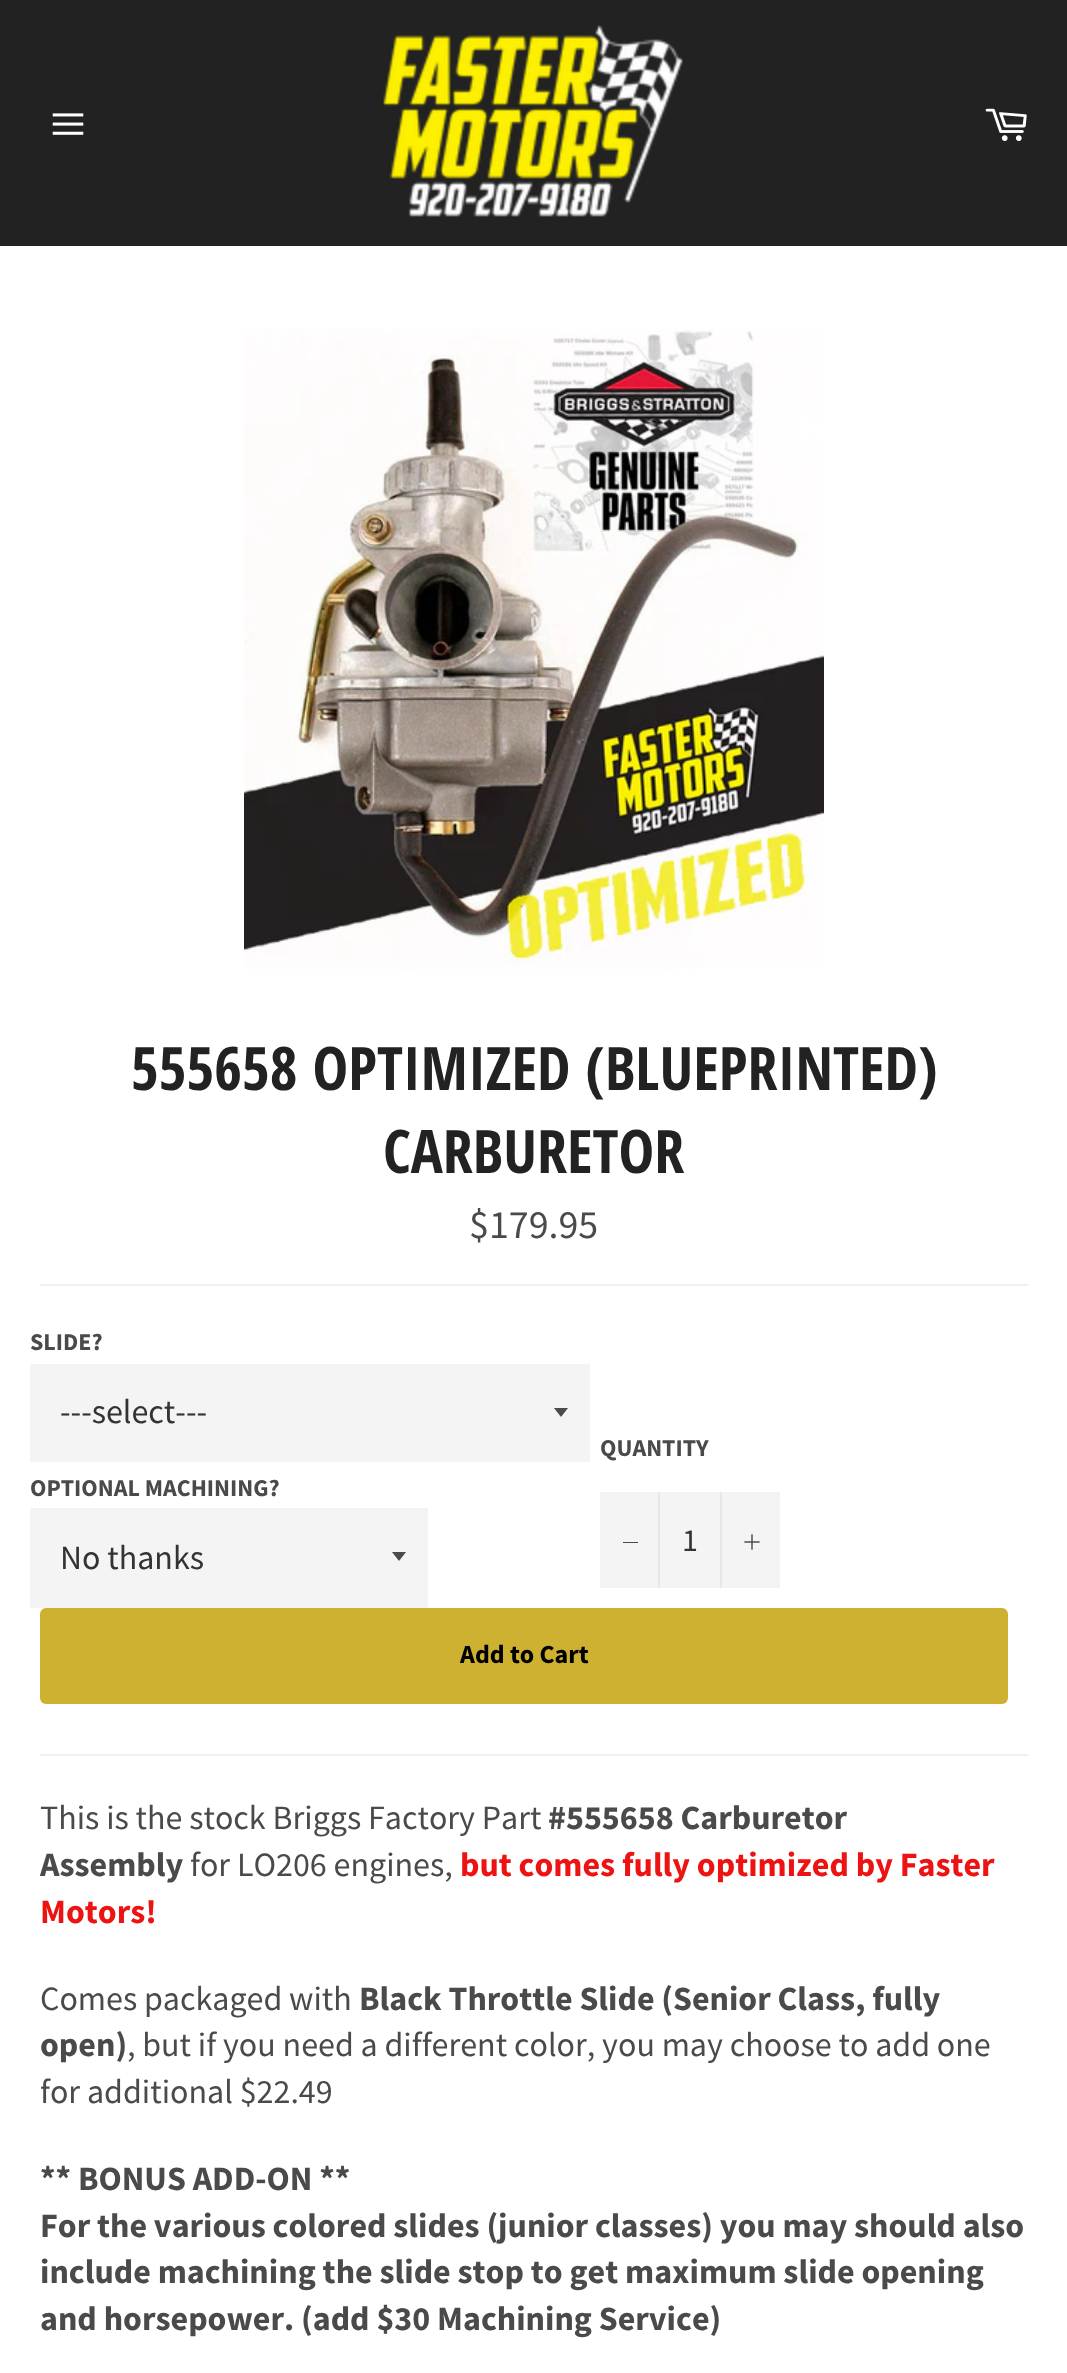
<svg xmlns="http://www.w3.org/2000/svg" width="1067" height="2373">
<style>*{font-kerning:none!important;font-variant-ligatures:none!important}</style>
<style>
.a{font:bold 60px Open Sans Condensed;fill:#222}
.b{font:40px Source Sans Pro;fill:#4b4a4a}
.c{font:bold 24px Source Sans Pro;fill:#4b4a4a}
.d{font:34px Source Sans Pro;fill:#333}
.e{font:32px Source Sans Pro;fill:#333}
.f{font:bold 26px Source Sans Pro;fill:#000}
.g{font:34px Source Sans Pro;fill:#4b4a4a}
.h{font:bold 34px Source Sans Pro;fill:#4b4a4a}
.i{font:bold 34px Source Sans Pro;fill:#ed1313}
</style>
<rect width="100%" height="100%" fill="#222"/>
<image href="1.png" x="52" y="113" width="32" height="22"/>
<image href="2.png" x="383" y="25" width="300" height="192"/>
<image href="3.png" x="985" y="108" width="42" height="33"/>
<path fill="#fff" d="M0 246h1067v2127H0z"/>
<image href="4.png" x="244" y="329" width="580" height="640"/>
<path fill="#f0f0f0" d="M40 1284h988v2H40z"/>
<path fill="#f4f4f4" d="M30 1364h560v98H30z"/>
<path fill="#4b4a4a" d="M554 1408l7 9l7-9z"/>
<path fill="#f4f4f4" d="M30 1508h398v100H30z"/>
<path fill="#4b4a4a" d="M392 1552l7 9l7-9z"/>
<path fill="#f4f4f4" d="M600 1492h180v96H600z"/>
<path fill="#e7e7e7" d="M658 1492h2v96H658z"/>
<path fill="#4b4a4a" d="M623 1542h15v1H623z"/>
<path fill="#e7e7e7" d="M720 1492h2v96H720z"/>
<image href="5.png" x="744" y="1534" width="16" height="16"/>
<rect fill="#ceb130" x="40" y="1608" width="968" height="96" rx="6"/>
<path fill="#f0f0f0" d="M40 1754h988v2H40z"/>
<text class="a" x="131" y="1090">555658 OPTIMIZED (BLUEPRINTED)</text>
<text class="a" x="383" y="1173">CARBURETOR</text>
<text class="b" x="469" y="1238">$179.95</text>
<text class="c" x="30" y="1350">SLIDE?</text>
<text class="d" x="60" y="1423">---select---</text>
<text class="c" x="30" y="1496">OPTIONAL MACHINING?</text>
<text class="d" x="60" y="1569">No thanks</text>
<text class="c" x="600" y="1456">QUANTITY</text>
<text class="e" x="682" y="1551">1</text>
<text class="f" x="460" y="1663">Add to Cart</text>
<text class="g" x="40" y="1829">This is the stock Briggs Factory Part</text>
<text class="h" x="548" y="1829">#555658 Carburetor</text>
<text class="h" x="40" y="1876">Assembly</text>
<text class="g" x="190" y="1876">for LO206 engines,</text>
<text class="i" x="460" y="1876">but comes fully optimized by Faster</text>
<text class="i" x="40" y="1923">Motors!</text>
<text class="g" x="40" y="2010">Comes packaged with</text>
<text class="h" x="359" y="2010">Black Throttle Slide (Senior Class, fully</text>
<text class="h" x="40" y="2056">open)</text>
<text class="g" x="127" y="2056">, but if you need a different color, you may choose to add one</text>
<text class="g" x="40" y="2103">for additional $22.49</text>
<text class="h" x="40" y="2190">** BONUS ADD-ON **</text>
<text class="h" x="40" y="2237">For the various colored slides (junior classes) you may should also</text>
<text class="h" x="40" y="2283">include machining the slide stop to get maximum slide opening</text>
<text class="h" x="40" y="2330">and horsepower. (add $30 Machining Service)</text>
</svg>
